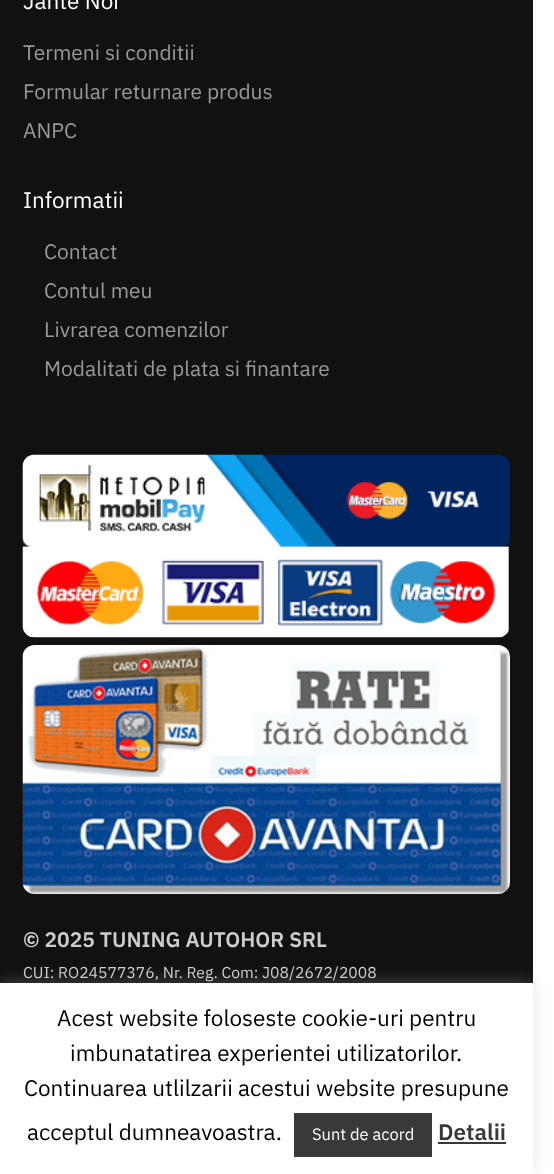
<svg xmlns="http://www.w3.org/2000/svg" width="554" height="1174">
<style>
.a{font:22.5px IBM Plex Sans;fill:#fff}
.b{font:21px IBM Plex Sans;fill:#999}
.c{font:600 21px IBM Plex Sans;fill:#ccc}
.d{font:15.75px IBM Plex Sans;fill:#ccc}
.e{font:22.5px IBM Plex Sans;fill:#000}
.f{font:16.5px IBM Plex Sans;fill:#fff}
.g{font:600 22.5px IBM Plex Sans;fill:#393939}
</style>
<rect width="100%" height="100%" fill="#fff"/>
<path fill="#111" d="M0 0h533v983H0z"/>
<image href="1.png" x="22" y="454" width="488" height="184"/>
<image href="2.png" x="22" y="645" width="488" height="249"/>
<path fill="#acabab4d" filter="blur(7.5px)" d="M0 981h533v192H0z"/>
<path fill="#fff" d="M0 983h533v191H0z"/>
<path fill="#393939" d="M294 1113h138v44H294z"/>
<path fill="#393939" d="M438 1142h68v2H438z"/>
<text class="a" x="23" y="9">Jante Noi</text>
<text class="b" x="23" y="60">Termeni si conditii</text>
<text class="b" x="23" y="99">Formular returnare produs</text>
<text class="b" x="23" y="138">ANPC</text>
<text class="a" x="23" y="208">Informatii</text>
<text class="b" x="44" y="259">Contact</text>
<text class="b" x="44" y="298">Contul meu</text>
<text class="b" x="44" y="337">Livrarea comenzilor</text>
<text class="b" x="44" y="376">Modalitati de plata si finantare</text>
<text class="c" x="23" y="947">© 2025 TUNING AUTOHOR SRL</text>
<text class="d" x="23" y="978">CUI: RO24577376, Nr. Reg. Com: J08/2672/2008</text>
<text class="e" x="57" y="1026">Acest website foloseste cookie-uri pentru</text>
<text class="e" x="70" y="1061">imbunatatirea experientei utilizatorilor.</text>
<text class="e" x="24" y="1096">Continuarea utlilzarii acestui website presupune</text>
<text class="e" x="27" y="1140">acceptul dumneavoastra.</text>
<text class="f" x="312" y="1140">Sunt de acord</text>
<text class="g" x="438" y="1140">Detalii</text>
</svg>
